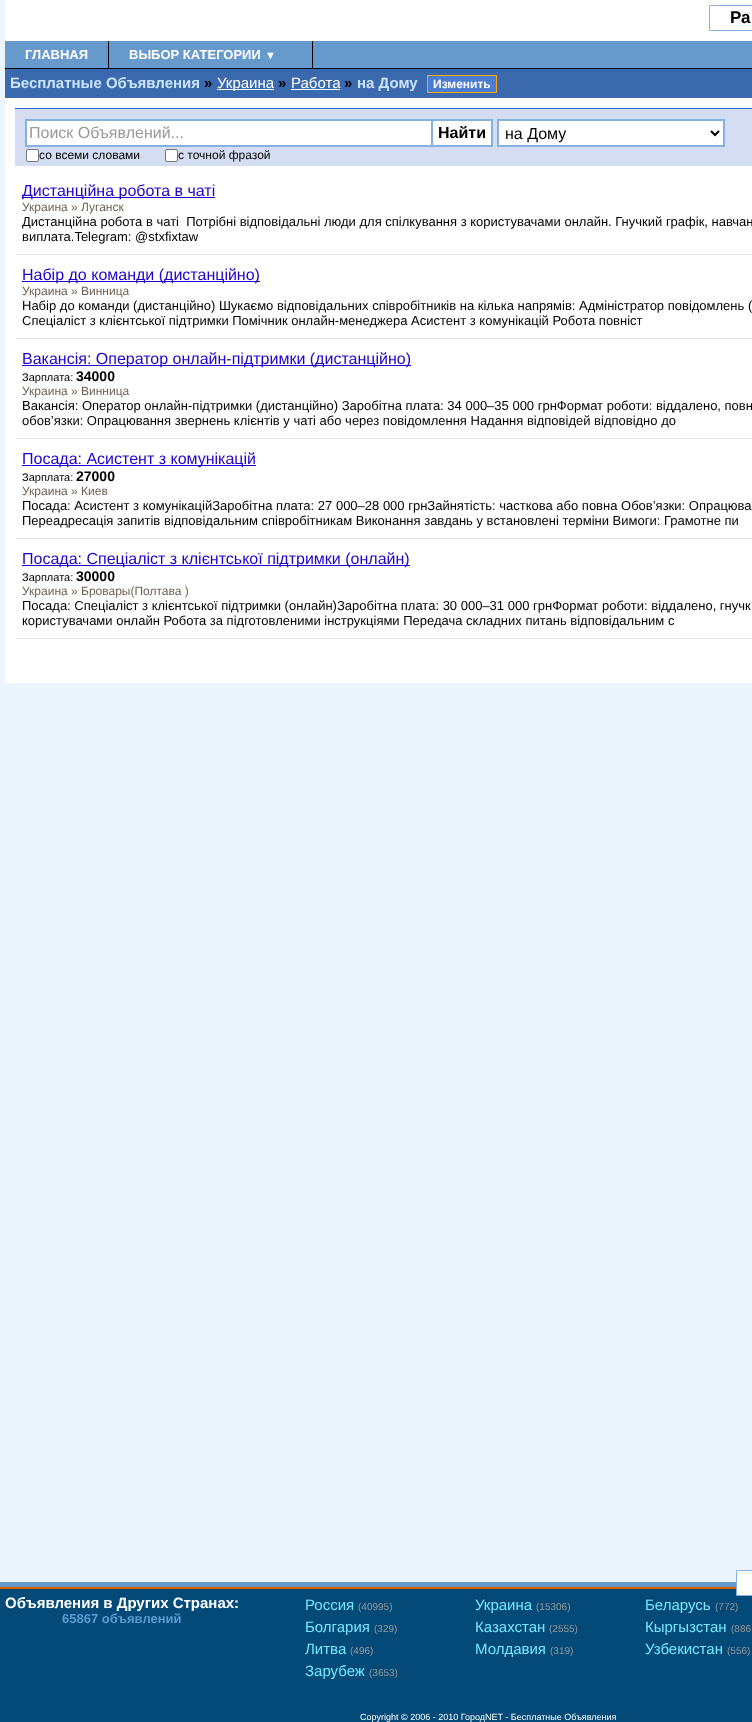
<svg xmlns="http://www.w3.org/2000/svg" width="752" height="1722">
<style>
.a{font:bold 17px Liberation Sans;fill:#000}
.b{font:bold 13px Liberation Sans;fill:#fff}
.c{font:bold 11px Liberation Sans;fill:#fff}
.d{font:bold 15px Liberation Sans;fill:#cbe5ff}
.e{font:bold 15px Liberation Sans;fill:#000}
.f{font:15px Liberation Sans;fill:#fff}
.g{font:bold 12px Liberation Sans;fill:#fff}
.h{font:16px Liberation Sans;fill:#999}
.i{font:bold 16px Liberation Sans;fill:#000}
.j{font:16px Liberation Sans;fill:#000}
.k{font:12px Liberation Sans;fill:#000}
.l{font:16px Liberation Sans;fill:#20c}
.m{font:12px Liberation Sans;fill:#6e6257}
.n{font:13px Liberation Sans;fill:#000}
.o{font:11px Liberation Sans;fill:#000}
.p{font:bold 14px Liberation Sans;fill:#000}
.q{font:bold 15px Liberation Sans;fill:#fff}
.r{font:bold 13px Liberation Sans;fill:#599cd4}
.s{font:15px Liberation Sans;fill:#73e8ff}
.t{font:10px Liberation Sans;fill:#999}
.u{font:9px Liberation Sans;fill:#fff}
</style>
<rect width="100%" height="100%" fill="#ecf5fb"/>
<path fill="#fff" d="M5 0h747v41H5z"/>
<path fill="none" stroke="#85b1de" d="M709.5 5.5h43v25H709.5z"/>
<path fill="#69c" d="M5 41h747v27H5z"/>
<path fill="#000" d="M5 68h747v1H5z"/>
<path fill="#000" d="M108 41h1v27H108z"/>
<path fill="#000" d="M312 41h1v27H312z"/>
<path fill="#3a6aad" d="M5 69h747v29H5z"/>
<path fill="#fff" d="M217 89h57v1H217z"/>
<path fill="#fff" d="M291 89h49v1H291z"/>
<path fill="#4c7ccf" stroke="#ffa615" d="M427.5 75.5h69v17H427.5z"/>
<path fill="#fff" d="M5 98h747v585H5z"/>
<path fill="#d5ddf3" d="M15 109h737v57H15z"/>
<path fill="#36c" d="M15 108h737v1H15z"/>
<path fill="#fff" d="M27 121h404v24H27z"/>
<path fill="#85b1de" d="M25 119h406v2H25z"/>
<path fill="#85b1de" d="M25 145h406v2H25z"/>
<path fill="#85b1de" d="M25 119h2v28H25z"/>
<path fill="#fff" stroke="#85b1de" stroke-width="2" d="M432 120h60v26H432z"/>
<path fill="#fff" stroke="#85b1de" stroke-width="2" d="M498 120h226v26H498z"/>
<path fill="none" stroke="#000" stroke-width="2" d="M711 131l4 4l4-4"/>
<rect fill="#fff" stroke="#767676" x="26.5" y="149.5" width="12" height="12" rx="1.5"/>
<rect fill="#fff" stroke="#767676" x="165.5" y="149.5" width="12" height="12" rx="1.5"/>
<path fill="#e7e7e7" d="M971 255h-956l2-1h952z"/>
<path fill="#fff" d="M15 255v-84l2 2v81z"/>
<path fill="#20c" d="M22 197h193v1H22z"/>
<path fill="#e7e7e7" d="M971 339h-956l2-1h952z"/>
<path fill="#fff" d="M15 339v-84l2 2v81z"/>
<path fill="#20c" d="M22 281h238v1H22z"/>
<path fill="#e7e7e7" d="M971 439h-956l2-1h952z"/>
<path fill="#fff" d="M15 439v-100l2 2v97z"/>
<path fill="#20c" d="M22 365h389v1H22z"/>
<path fill="#e7e7e7" d="M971 539h-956l2-1h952z"/>
<path fill="#fff" d="M15 539v-100l2 2v97z"/>
<path fill="#20c" d="M22 465h234v1H22z"/>
<path fill="#e7e7e7" d="M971 639h-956l2-1h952z"/>
<path fill="#fff" d="M15 639v-100l2 2v97z"/>
<path fill="#20c" d="M22 565h388v1H22z"/>
<path fill="#69c" d="M0 1582h736v5H0z"/>
<path fill="#034a79" d="M0 1589h752v133H0z"/>
<path fill="#e25f00" d="M0 1587h736v2H0z"/>
<path fill="#fff" stroke="#85b1de" d="M736.5 1570.5h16v25H736.5z"/>
<text class="a" x="730" y="23">Ра</text>
<text class="b" x="25" y="59">ГЛАВНАЯ</text>
<text class="b" x="129" y="59">ВЫБОР КАТЕГОРИИ</text>
<text class="c" x="265" y="59">▼</text>
<text class="d" x="10" y="88">Бесплатные Oбъявления</text>
<text class="e" x="204" y="88">»</text>
<text class="f" x="217" y="88">Украина</text>
<text class="e" x="278" y="88">»</text>
<text class="f" x="291" y="88">Работа</text>
<text class="e" x="344" y="88">»</text>
<text class="d" x="357" y="88">на Дому</text>
<text class="g" x="433" y="88">Изменить</text>
<text class="h" x="29" y="138">Поиск Объявлений...</text>
<text class="i" x="438" y="138">Найти</text>
<text class="j" x="505" y="139">на Дому</text>
<text class="k" x="39" y="159">со всеми словами</text>
<text class="k" x="178" y="159">с точной фразой</text>
<text class="l" x="22" y="196">Дистанційна робота в чаті</text>
<text class="m" x="22" y="211">Украина » Луганск</text>
<text class="n" xml:space="preserve" x="22" y="226">Дистанційна робота в чаті  Потрібні відповідальні люди для спілкування з користувачами онлайн. Гнучкий графік, навчан</text>
<text class="n" x="22" y="241">виплата.Telegram: @stxfixtaw</text>
<text class="l" x="22" y="280">Набір до команди (дистанційно)</text>
<text class="m" x="22" y="295">Украина » Винница</text>
<text class="n" x="22" y="310">Набір до команди (дистанційно) Шукаємо відповідальних співробітників на кілька напрямів: Адміністратор повідомлень (</text>
<text class="n" x="22" y="325">Спеціаліст з клієнтської підтримки Помічник онлайн-менеджера Асистент з комунікацій Робота повніст</text>
<text class="l" x="22" y="364">Вакансія: Оператор онлайн-підтримки (дистанційно)</text>
<text class="o" x="22" y="381">Зарплата:</text>
<text class="p" x="76" y="381">34000</text>
<text class="m" x="22" y="395">Украина » Винница</text>
<text class="n" x="22" y="410">Вакансія: Оператор онлайн-підтримки (дистанційно) Заробітна плата: 34 000–35 000 грнФормат роботи: віддалено, повн</text>
<text class="n" x="22" y="425">обов’язки: Опрацювання звернень клієнтів у чаті або через повідомлення Надання відповідей відповідно до</text>
<text class="l" x="22" y="464">Посада: Асистент з комунікацій</text>
<text class="o" x="22" y="481">Зарплата:</text>
<text class="p" x="76" y="481">27000</text>
<text class="m" x="22" y="495">Украина » Киев</text>
<text class="n" x="22" y="510">Посада: Асистент з комунікаційЗаробітна плата: 27 000–28 000 грнЗайнятість: часткова або повна Обов’язки: Опрацюва</text>
<text class="n" x="22" y="525">Переадресація запитів відповідальним співробітникам Виконання завдань у встановлені терміни Вимоги: Грамотне пи</text>
<text class="l" x="22" y="564">Посада: Спеціаліст з клієнтської підтримки (онлайн)</text>
<text class="o" x="22" y="581">Зарплата:</text>
<text class="p" x="76" y="581">30000</text>
<text class="m" x="22" y="595">Украина » Бровары(Полтава )</text>
<text class="n" x="22" y="610">Посада: Спеціаліст з клієнтської підтримки (онлайн)Заробітна плата: 30 000–31 000 грнФормат роботи: віддалено, гнучк</text>
<text class="n" x="22" y="625">користувачами онлайн Робота за підготовленими інструкціями Передача складних питань відповідальним с</text>
<text class="q" x="5" y="1608">Объявления в Других Странах:</text>
<text class="r" x="62" y="1623">65867 объявлений</text>
<text class="s" x="305" y="1610">Россия</text>
<text class="t" x="358" y="1610">(40995)</text>
<text class="s" x="475" y="1610">Украина</text>
<text class="t" x="536" y="1610">(15306)</text>
<text class="s" x="645" y="1610">Беларусь</text>
<text class="t" x="715" y="1610">(772)</text>
<text class="s" x="305" y="1632">Болгария</text>
<text class="t" x="374" y="1632">(329)</text>
<text class="s" x="475" y="1632">Казахстан</text>
<text class="t" x="549" y="1632">(2555)</text>
<text class="s" x="645" y="1632">Кыргызстан</text>
<text class="t" x="731" y="1632">(886</text>
<text class="s" x="305" y="1654">Литва</text>
<text class="t" x="350" y="1654">(496)</text>
<text class="s" x="475" y="1654">Молдавия</text>
<text class="t" x="550" y="1654">(319)</text>
<text class="s" x="645" y="1654">Узбекистан</text>
<text class="t" x="727" y="1654">(556)</text>
<text class="s" x="305" y="1676">Зарубеж</text>
<text class="t" x="369" y="1676">(3653)</text>
<text class="u" x="360" y="1720">Copyright © 2006 - 2010 ГородNET - Бесплатные Объявления</text>
</svg>
